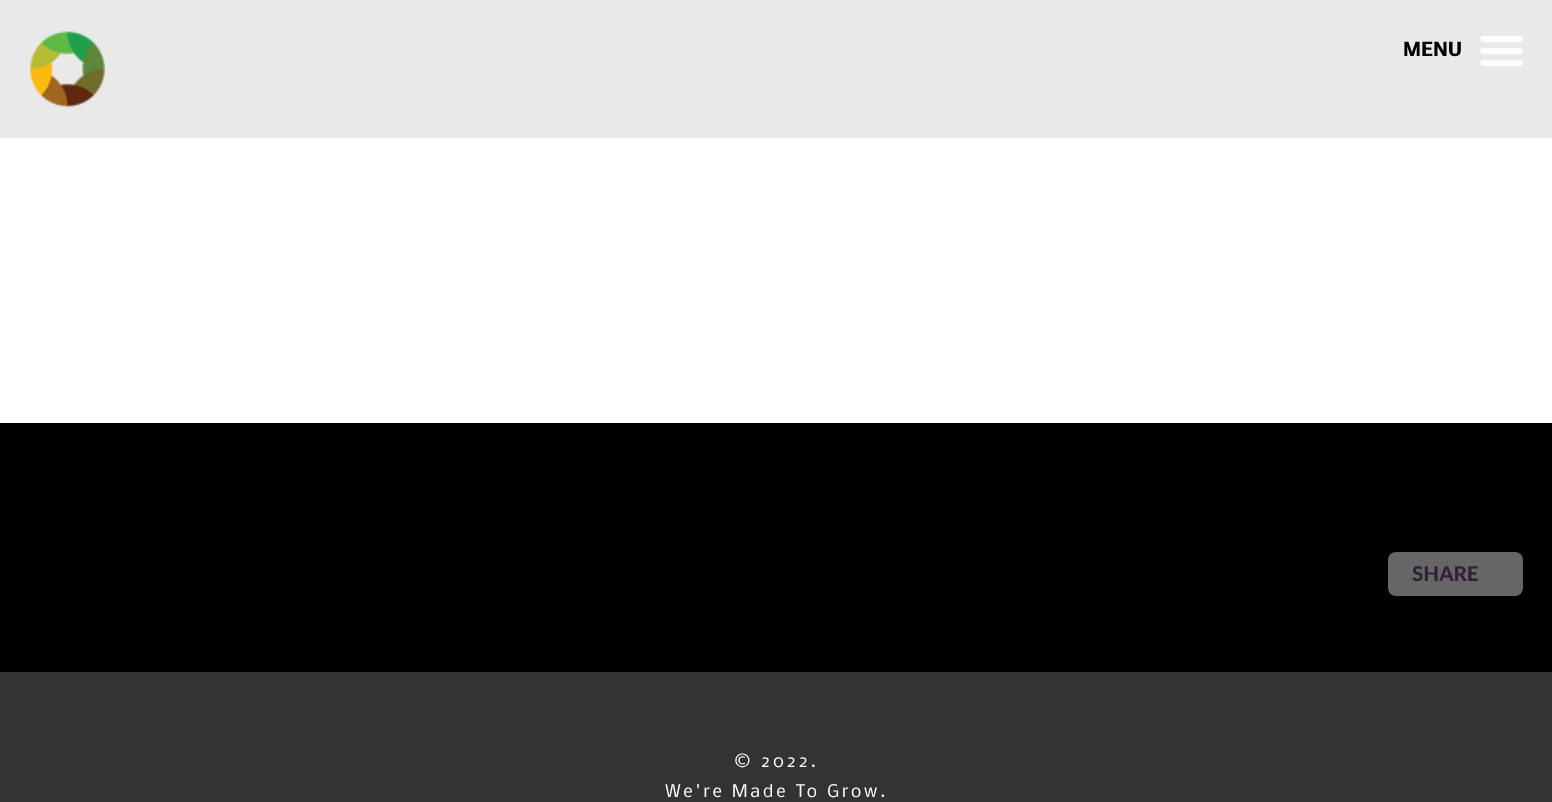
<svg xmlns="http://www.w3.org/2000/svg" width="1552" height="802">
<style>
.a{font:bold 18px Nobile;fill:#000}
.b{font:900 20.5px Lato;fill:#2f2237}
.c{font:16.5px Nobile;letter-spacing:3px;fill:#fff}
</style>
<rect width="100%" height="100%" fill="#fff"/>
<path fill="#e9e9e9" d="M0 0h1552v138H0z"/>
<image href="1.png" x="30" y="31" width="75" height="76"/>
<image href="2.png" x="1480" y="36" width="43" height="30"/>
<path fill="#000" d="M0 423h1552v249H0z"/>
<rect fill="#666" x="1388" y="552" width="135" height="44" rx="8"/>
<path fill="#333" d="M0 672h1552v130H0z"/>
<text class="a" x="1403" y="56">MENU</text>
<text class="b" x="1412" y="581">SHARE</text>
<text class="c" x="734" y="767">© 2022.</text>
<text class="c" x="665" y="797">We're Made To Grow.</text>
</svg>
